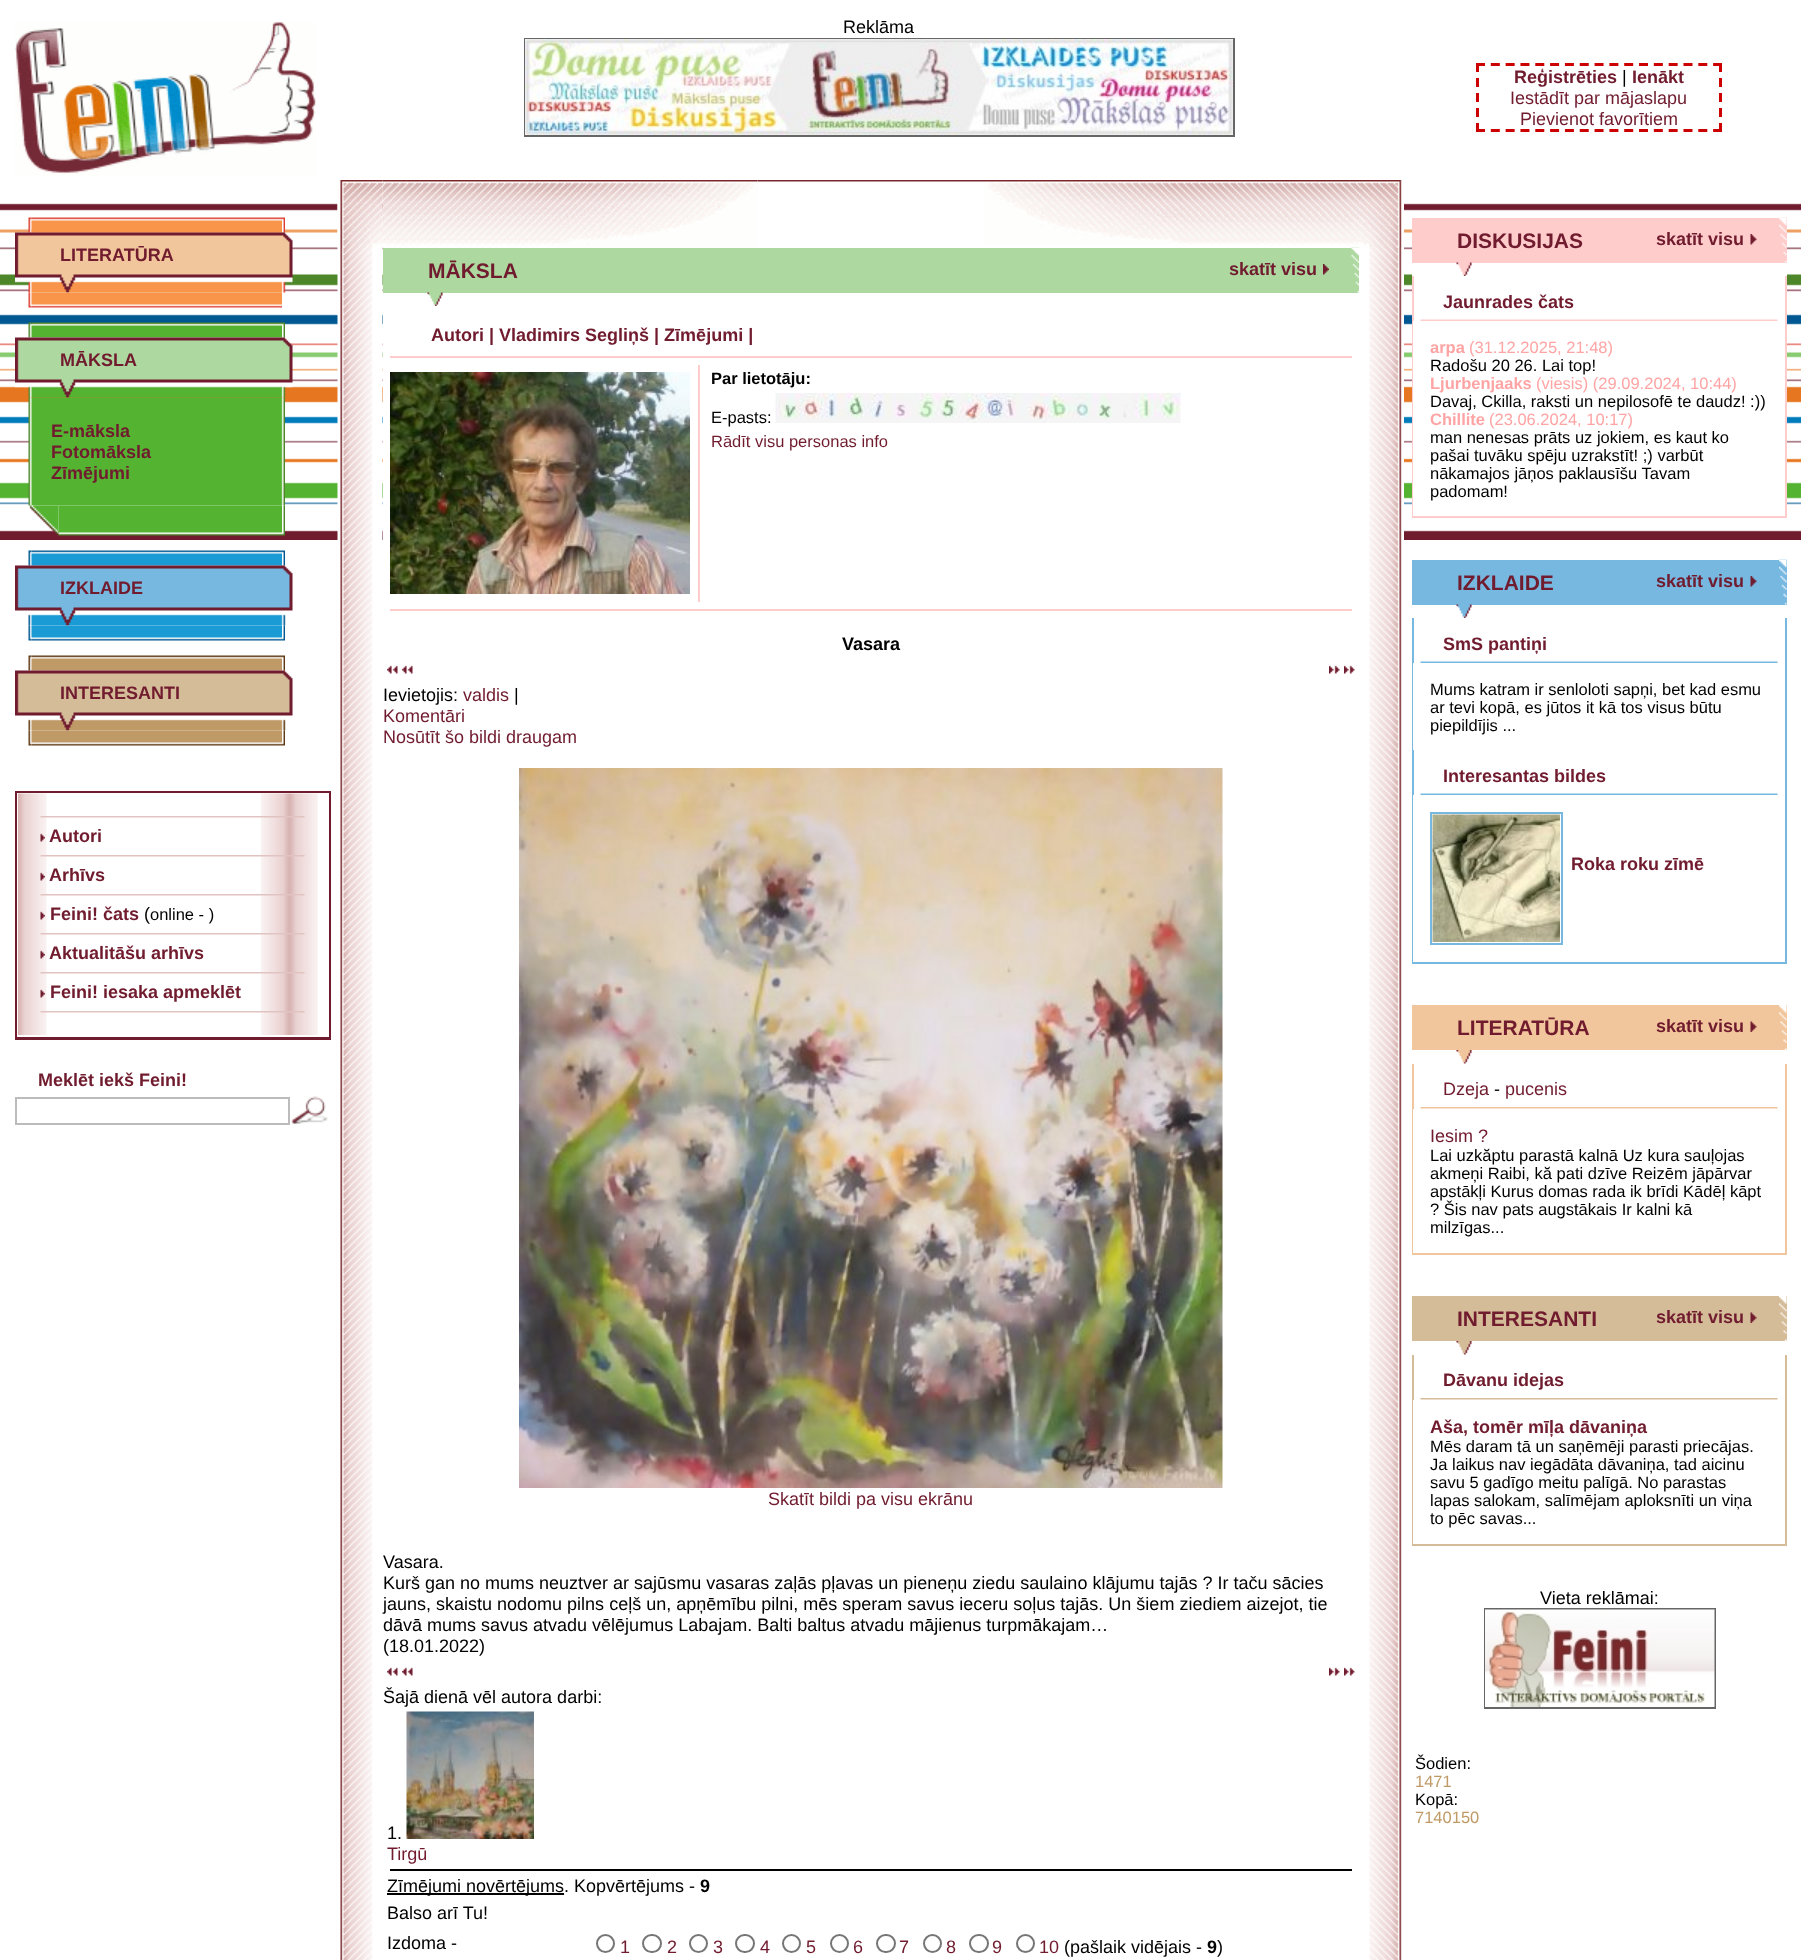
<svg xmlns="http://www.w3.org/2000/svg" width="1801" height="1960">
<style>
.a{font:18px Liberation Sans;fill:#000}
.b{font:bold 18px Liberation Sans;fill:#701b2e}
.c{font:18px Liberation Sans;fill:#701b2e}
.d{font:16.5px Liberation Sans;fill:#000}
.e{font:bold 21px Liberation Sans;fill:#701b2e}
.f{font:bold 16.5px Liberation Sans;fill:#000}
.g{font:16.5px Liberation Sans;fill:#701b2e}
.h{font:bold 18px Liberation Sans;fill:#000}
.i{font:bold 16.5px Liberation Sans;fill:#ffa4a4}
.j{font:16.5px Liberation Sans;fill:#ffa4a4}
.k{font:16.5px Liberation Sans;fill:#c09a66}
</style>
<rect width="100%" height="100%" fill="#fff"/>
<image href="1.png" x="0" y="203" width="1801" height="337"/>
<image href="2.png" x="15" y="22" width="301" height="154"/>
<path fill="none" stroke="#666" stroke-width="2" d="M525 39h709v97H525z"/>
<image href="3.png" x="525" y="39" width="708" height="96"/>
<path fill="none" stroke="#c00" stroke-width="3" stroke-dasharray="9 5.82" d="M1476 64.5h246"/>
<path fill="none" stroke="#c00" stroke-width="3" stroke-dasharray="9 6" d="M1720.5 63v69"/>
<path fill="none" stroke="#c00" stroke-width="3" stroke-dasharray="9 5.82" d="M1476 130.5h246"/>
<path fill="none" stroke="#c00" stroke-width="3" stroke-dasharray="9 6" d="M1477.5 63v69"/>
<image href="4.png" x="28" y="217" width="4" height="16"/>
<image href="5.png" x="31" y="217" width="251" height="16"/>
<image href="6.png" x="282" y="217" width="3" height="16"/>
<image href="7.png" x="15" y="232" width="278" height="61"/>
<image href="8.png" x="28" y="292" width="4" height="16"/>
<image href="9.png" x="31" y="292" width="251" height="16"/>
<image href="10.png" x="28" y="322" width="4" height="16"/>
<image href="11.png" x="31" y="322" width="251" height="16"/>
<image href="12.png" x="282" y="322" width="3" height="16"/>
<image href="13.png" x="15" y="337" width="278" height="61"/>
<image href="14.png" x="28" y="397" width="257" height="109"/>
<image href="15.png" x="29" y="505" width="30" height="30"/>
<image href="16.png" x="58" y="505" width="224" height="31"/>
<image href="17.png" x="282" y="505" width="3" height="31"/>
<image href="18.png" x="28" y="550" width="4" height="16"/>
<image href="19.png" x="31" y="550" width="251" height="16"/>
<image href="20.png" x="282" y="550" width="3" height="16"/>
<image href="21.png" x="15" y="565" width="278" height="61"/>
<image href="22.png" x="28" y="625" width="4" height="16"/>
<image href="23.png" x="31" y="625" width="251" height="16"/>
<image href="24.png" x="282" y="625" width="3" height="16"/>
<image href="25.png" x="28" y="655" width="4" height="16"/>
<image href="26.png" x="31" y="655" width="251" height="16"/>
<image href="27.png" x="282" y="655" width="3" height="16"/>
<image href="28.png" x="15" y="670" width="278" height="61"/>
<image href="29.png" x="28" y="730" width="4" height="16"/>
<image href="30.png" x="31" y="730" width="251" height="16"/>
<image href="31.png" x="282" y="730" width="3" height="16"/>
<path fill="#701b2e" d="M15 791h315v2H15z"/>
<path fill="#701b2e" d="M329 791h2v249H329z"/>
<path fill="#701b2e" d="M15 1037h315v3H15z"/>
<path fill="#701b2e" d="M15 791h2v249H15z"/>
<image href="32.png" x="18" y="793" width="300" height="242"/>
<image href="33.png" x="40" y="816" width="265" height="2"/>
<image href="34.png" x="40" y="833" width="5" height="9"/>
<image href="35.png" x="40" y="855" width="265" height="2"/>
<image href="34.png" x="40" y="872" width="5" height="9"/>
<image href="35.png" x="40" y="894" width="265" height="2"/>
<image href="34.png" x="40" y="911" width="5" height="9"/>
<image href="35.png" x="40" y="933" width="265" height="2"/>
<image href="34.png" x="40" y="950" width="5" height="9"/>
<image href="35.png" x="40" y="972" width="265" height="2"/>
<image href="34.png" x="40" y="989" width="5" height="9"/>
<image href="35.png" x="40" y="1011" width="265" height="2"/>
<path fill="none" stroke="#bcbcbc" stroke-width="2" d="M16 1098h273v26H16z"/>
<image href="36.png" x="291" y="1096" width="37" height="29"/>
<image href="37.png" x="337" y="180" width="46" height="1780"/>
<path fill="#fff" d="M383 203h976v337H383z"/>
<image href="39.png" x="382" y="180" width="376" height="68"/>
<image href="38.png" x="337" y="180" width="46" height="68"/>
<image href="40.png" x="757" y="180" width="227" height="2"/>
<image href="41.png" x="984" y="180" width="375" height="65"/>
<path fill="#add8a0" d="M383 248h976v45H383z"/>
<image href="42.png" x="1323" y="264" width="6" height="11"/>
<image href="43.png" x="1351" y="247" width="8" height="46"/>
<image href="44.png" x="427" y="292" width="16" height="14"/>
<path fill="#fcc" d="M390 356h962v2H390z"/>
<image href="45.png" x="390" y="372" width="300" height="222"/>
<path fill="#fcc" d="M698 365h2v237H698z"/>
<image href="46.png" x="775" y="393" width="406" height="30"/>
<path fill="#fcc" d="M390 609h962v2H390z"/>
<image href="47.png" x="387" y="665" width="11" height="9"/>
<image href="47.png" x="402" y="665" width="11" height="9"/>
<image href="48.png" x="1329" y="665" width="11" height="9"/>
<image href="48.png" x="1344" y="665" width="11" height="9"/>
<image href="49.png" x="519" y="768" width="704" height="720"/>
<image href="47.png" x="387" y="1667" width="11" height="9"/>
<image href="47.png" x="402" y="1667" width="11" height="9"/>
<image href="48.png" x="1329" y="1667" width="11" height="9"/>
<image href="48.png" x="1344" y="1667" width="11" height="9"/>
<image href="50.png" x="406" y="1711" width="128" height="128"/>
<path fill="#000" d="M390 1869h962v2H390z"/>
<path fill="#000" d="M387 1893h177v2H387z"/>
<circle fill="none" stroke="#767676" stroke-width="2" cx="605.5" cy="1943.5" r="8.5"/>
<rect fill="none" stroke="#767676" stroke-width="2" x="643" y="1935" width="18" height="17" rx="8.5"/>
<circle fill="none" stroke="#767676" stroke-width="2" cx="698.5" cy="1943.5" r="8.5"/>
<rect fill="none" stroke="#767676" stroke-width="2" x="736" y="1935" width="18" height="17" rx="8.5"/>
<circle fill="none" stroke="#767676" stroke-width="2" cx="791.5" cy="1943.5" r="8.5"/>
<circle fill="none" stroke="#767676" stroke-width="2" cx="839.5" cy="1943.5" r="8.5"/>
<rect fill="none" stroke="#767676" stroke-width="2" x="877" y="1935" width="18" height="17" rx="8.5"/>
<circle fill="none" stroke="#767676" stroke-width="2" cx="932.5" cy="1943.5" r="8.5"/>
<rect fill="none" stroke="#767676" stroke-width="2" x="970" y="1935" width="18" height="17" rx="8.5"/>
<circle fill="none" stroke="#767676" stroke-width="2" cx="1025.5" cy="1943.5" r="8.5"/>
<image href="51.png" x="1359" y="180" width="45" height="1780"/>
<image href="52.png" x="1359" y="180" width="43" height="68"/>
<path fill="#fff" d="M1412 274h375v2H1412z"/>
<path fill="#fcc" d="M1412 218h375v45H1412z"/>
<image href="53.png" x="1750" y="234" width="7" height="11"/>
<image href="54.png" x="1779" y="217" width="8" height="46"/>
<image href="55.png" x="1456" y="262" width="16" height="14"/>
<path fill="#fff" d="M1414 276h371v45H1414z"/>
<path fill="#fcc" d="M1785 276h2v242H1785z"/>
<path fill="#fcc" d="M1412 516h375v2H1412z"/>
<path fill="#fcc" d="M1412 276h2v242H1412z"/>
<image href="56.png" x="1420" y="319" width="358" height="2"/>
<path fill="#fff" d="M1413 321h372v195H1413z"/>
<path fill="#77b8e1" d="M1412 560h375v45H1412z"/>
<image href="57.png" x="1750" y="576" width="7" height="11"/>
<image href="58.png" x="1779" y="559" width="8" height="46"/>
<image href="59.png" x="1456" y="604" width="16" height="14"/>
<path fill="#77b8e1" d="M1785 618h2v345H1785z"/>
<path fill="#77b8e1" d="M1412 962h375v2H1412z"/>
<path fill="#77b8e1" d="M1412 618h2v345H1412z"/>
<image href="60.png" x="1420" y="661" width="358" height="2"/>
<path fill="#fff" d="M1413 663h1v87H1413z"/>
<image href="60.png" x="1420" y="793" width="358" height="2"/>
<path fill="#fff" d="M1413 795h1v167H1413z"/>
<path fill="none" stroke="#77b8e1" stroke-width="2" d="M1431 813h131v131H1431z"/>
<image href="61.png" x="1432" y="814" width="128" height="128"/>
<path fill="#f2c69c" d="M1412 1005h375v45H1412z"/>
<image href="62.png" x="1750" y="1021" width="7" height="11"/>
<image href="63.png" x="1779" y="1005" width="8" height="45"/>
<image href="64.png" x="1456" y="1050" width="16" height="14"/>
<path fill="#f2c69c" d="M1785 1064h2v190H1785z"/>
<path fill="#f2c69c" d="M1412 1253h375v2H1412z"/>
<path fill="#f2c69c" d="M1412 1064h2v190H1412z"/>
<image href="65.png" x="1420" y="1107" width="358" height="2"/>
<path fill="#fff" d="M1413 1109h1v144H1413z"/>
<path fill="#d5bc99" d="M1412 1296h375v45H1412z"/>
<image href="66.png" x="1750" y="1312" width="7" height="11"/>
<image href="67.png" x="1779" y="1296" width="8" height="45"/>
<image href="68.png" x="1456" y="1341" width="16" height="14"/>
<path fill="#d5bc99" d="M1785 1355h2v190H1785z"/>
<path fill="#d5bc99" d="M1412 1544h375v2H1412z"/>
<path fill="#d5bc99" d="M1412 1355h2v190H1412z"/>
<image href="69.png" x="1420" y="1398" width="358" height="2"/>
<path fill="#fff" d="M1413 1400h1v144H1413z"/>
<path fill="none" stroke="#666" stroke-width="2" d="M1485 1609h230v99H1485z"/>
<image href="70.png" x="1485" y="1609" width="230" height="98"/>
<text class="a" x="843" y="33">Reklāma</text>
<text class="b" x="1514" y="83">Reģistrēties</text>
<text class="a" x="1622" y="83">|</text>
<text class="b" x="1632" y="83">Ienākt</text>
<text class="c" x="1510" y="104">Iestādīt par mājaslapu</text>
<text class="c" x="1520" y="125">Pievienot favorītiem</text>
<text class="b" x="60" y="261">LITERATŪRA</text>
<text class="b" x="60" y="366">MĀKSLA</text>
<text class="b" x="51" y="437">E-māksla</text>
<text class="b" x="51" y="458">Fotomāksla</text>
<text class="b" x="51" y="479">Zīmējumi</text>
<text class="b" x="60" y="594">IZKLAIDE</text>
<text class="b" x="60" y="699">INTERESANTI</text>
<text class="b" x="49" y="842">Autori</text>
<text class="b" x="49" y="881">Arhīvs</text>
<text class="b" x="50" y="920">Feini! čats</text>
<text class="a" x="144" y="920">(</text>
<text class="d" x="150" y="920">online - )</text>
<text class="b" x="49" y="959">Aktualitāšu arhīvs</text>
<text class="b" x="50" y="998">Feini! iesaka apmeklēt</text>
<text class="b" x="38" y="1086">Meklēt iekš Feini!</text>
<text class="e" x="428" y="278">MĀKSLA</text>
<text class="b" x="1229" y="275">skatīt visu</text>
<text class="b" x="431" y="341">Autori | Vladimirs Segliņš | Zīmējumi |</text>
<text class="f" x="711" y="384">Par lietotāju:</text>
<text class="d" x="711" y="423">E-pasts:</text>
<text class="g" x="711" y="447">Rādīt visu personas info</text>
<text class="h" x="842" y="650">Vasara</text>
<text class="a" x="383" y="701">Ievietojis:</text>
<text class="c" x="463" y="701">valdis</text>
<text class="a" x="514" y="701">|</text>
<text class="c" x="383" y="722">Komentāri</text>
<text class="c" x="383" y="743">Nosūtīt šo bildi draugam</text>
<text class="c" x="768" y="1505">Skatīt bildi pa visu ekrānu</text>
<text class="a" x="383" y="1568">Vasara.</text>
<text class="a" x="383" y="1589">Kurš gan no mums neuztver ar sajūsmu vasaras zaļās pļavas un pieneņu ziedu saulaino klājumu tajās ? Ir taču sācies</text>
<text class="a" x="383" y="1610">jauns, skaistu nodomu pilns ceļš un, apņēmību pilni, mēs speram savus ieceru soļus tajās. Un šiem ziediem aizejot, tie</text>
<text class="a" x="383" y="1631">dāvā mums savus atvadu vēlējumus Labajam. Balti baltus atvadu mājienus turpmākajam…</text>
<text class="a" x="383" y="1652">(18.01.2022)</text>
<text class="a" x="383" y="1703">Šajā dienā vēl autora darbi:</text>
<text class="a" x="387" y="1839">1.</text>
<text class="c" x="387" y="1860">Tirgū</text>
<text class="a" x="387" y="1892">Zīmējumi novērtējums. Kopvērtējums -</text>
<text class="h" x="700" y="1892">9</text>
<text class="a" x="387" y="1919">Balso arī Tu!</text>
<text class="a" x="387" y="1949">Izdoma -</text>
<text class="c" x="620" y="1953">1</text>
<text class="c" x="667" y="1953">2</text>
<text class="c" x="713" y="1953">3</text>
<text class="c" x="760" y="1953">4</text>
<text class="c" x="806" y="1953">5</text>
<text class="c" x="853" y="1953">6</text>
<text class="c" x="899" y="1953">7</text>
<text class="c" x="946" y="1953">8</text>
<text class="c" x="992" y="1953">9</text>
<text class="c" x="1039" y="1953">10</text>
<text class="a" x="1064" y="1953">(pašlaik vidējais -</text>
<text class="h" x="1207" y="1953">9</text>
<text class="a" x="1217" y="1953">)</text>
<text class="e" x="1457" y="248">DISKUSIJAS</text>
<text class="b" x="1656" y="245">skatīt visu</text>
<text class="b" x="1443" y="308">Jaunrades čats</text>
<text class="i" x="1430" y="353">arpa</text>
<text class="j" x="1469" y="353">(31.12.2025, 21:48)</text>
<text class="d" x="1430" y="371">Radošu 20 26. Lai top!</text>
<text class="i" x="1430" y="389">Ljurbenjaaks</text>
<text class="j" x="1536" y="389">(viesis) (29.09.2024, 10:44)</text>
<text class="d" x="1430" y="407">Davaj, Ckilla, raksti un nepilosofē te daudz! :))</text>
<text class="i" x="1430" y="425">Chillite</text>
<text class="j" x="1489" y="425">(23.06.2024, 10:17)</text>
<text class="d" x="1430" y="443">man nenesas prāts uz jokiem, es kaut ko</text>
<text class="d" x="1430" y="461">pašai tuvāku spēju uzrakstīt! ;) varbūt</text>
<text class="d" x="1430" y="479">nākamajos jāņos paklausīšu Tavam</text>
<text class="d" x="1430" y="497">padomam!</text>
<text class="e" x="1457" y="590">IZKLAIDE</text>
<text class="b" x="1656" y="587">skatīt visu</text>
<text class="b" x="1443" y="650">SmS pantiņi</text>
<text class="d" x="1430" y="695">Mums katram ir senloloti sapņi, bet kad esmu</text>
<text class="d" x="1430" y="713">ar tevi kopā, es jūtos it kā tos visus būtu</text>
<text class="d" x="1430" y="731">piepildījis ...</text>
<text class="b" x="1443" y="782">Interesantas bildes</text>
<text class="b" x="1571" y="870">Roka roku zīmē</text>
<text class="e" x="1457" y="1035">LITERATŪRA</text>
<text class="b" x="1656" y="1032">skatīt visu</text>
<text class="c" x="1443" y="1095">Dzeja</text>
<text class="a" x="1494" y="1095">-</text>
<text class="c" x="1505" y="1095">pucenis</text>
<text class="c" x="1430" y="1142">Iesim ?</text>
<text class="d" x="1430" y="1161">Lai uzkăptu parastā kalnā Uz kura sauļojas</text>
<text class="d" x="1430" y="1179">akmeņi Raibi, kă pati dzīve Reizēm jāpārvar</text>
<text class="d" x="1430" y="1197">apstākļi Kurus domas rada ik brīdi Kādēļ kāpt</text>
<text class="d" x="1430" y="1215">? Šis nav pats augstākais Ir kalni kā</text>
<text class="d" x="1430" y="1233">milzīgas...</text>
<text class="e" x="1457" y="1326">INTERESANTI</text>
<text class="b" x="1656" y="1323">skatīt visu</text>
<text class="b" x="1443" y="1386">Dāvanu idejas</text>
<text class="b" x="1430" y="1433">Aša, tomēr mīļa dāvaniņa</text>
<text class="d" x="1430" y="1452">Mēs daram tā un saņēmēji parasti priecājas.</text>
<text class="d" x="1430" y="1470">Ja laikus nav iegādāta dāvaniņa, tad aicinu</text>
<text class="d" x="1430" y="1488">savu 5 gadīgo meitu palīgā. No parastas</text>
<text class="d" x="1430" y="1506">lapas salokam, salīmējam aploksnīti un viņa</text>
<text class="d" x="1430" y="1524">to pēc savas...</text>
<text class="a" x="1540" y="1604">Vieta reklāmai:</text>
<text class="d" x="1415" y="1769">Šodien:</text>
<text class="k" x="1415" y="1787">1471</text>
<text class="d" x="1415" y="1805">Kopā:</text>
<text class="k" x="1415" y="1823">7140150</text>
</svg>
